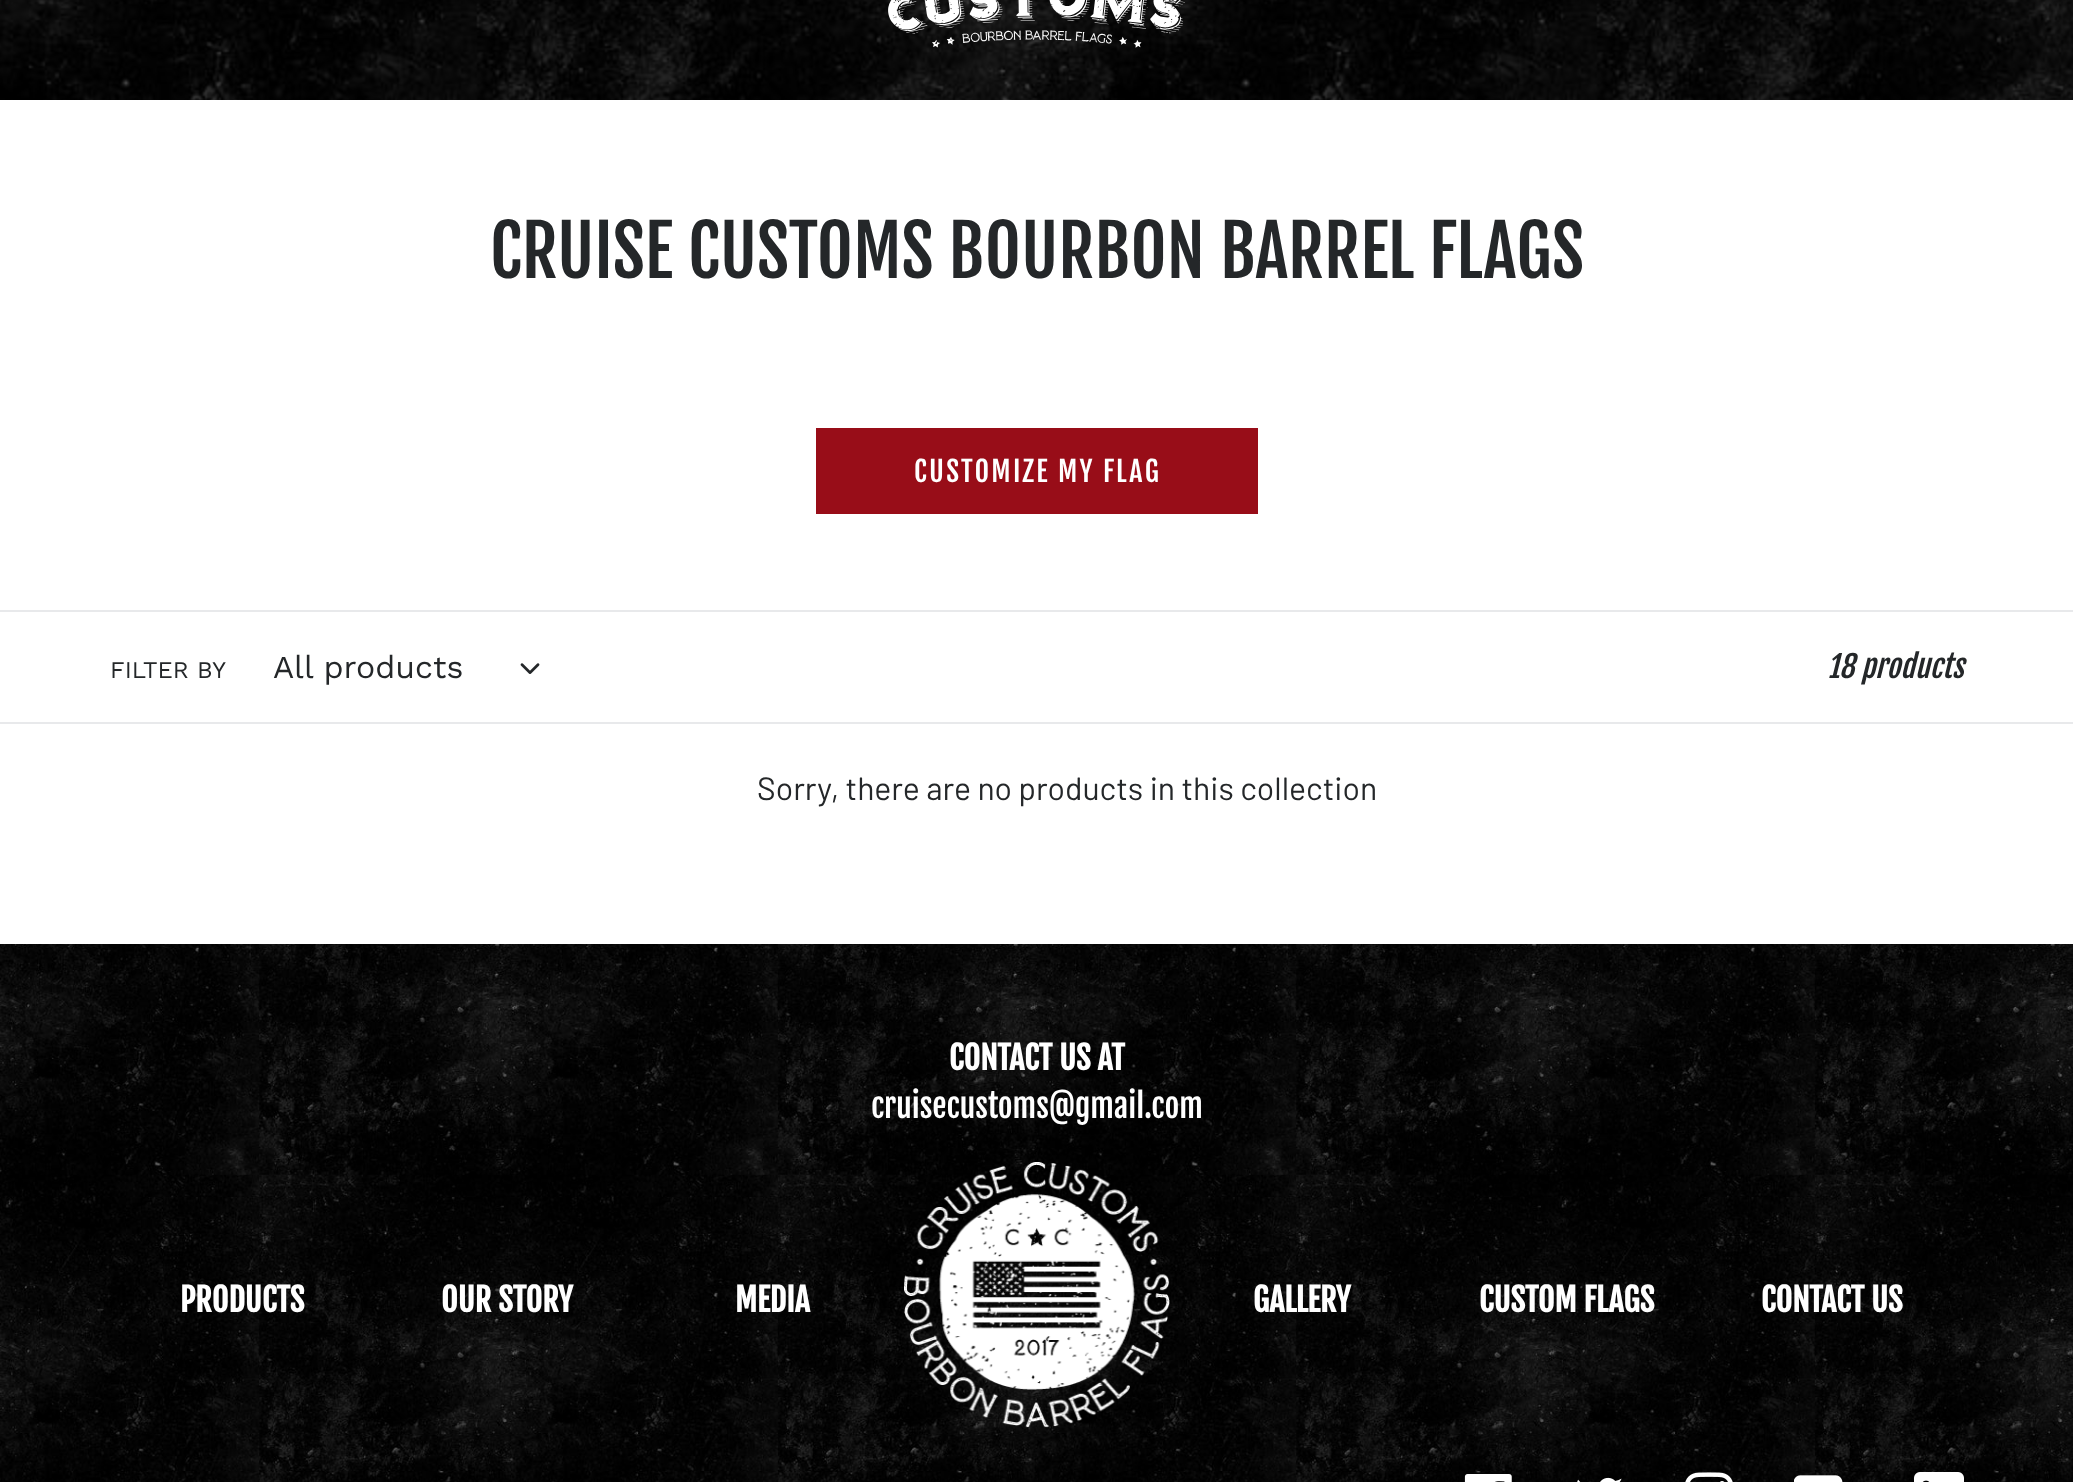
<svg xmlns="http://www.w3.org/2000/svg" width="2073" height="1482">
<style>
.a{font:70px Fjalla One;fill:#242729}
.b{font:28px Fjalla One;letter-spacing:2.25px;fill:#fff}
.c{font:24px Work Sans;fill:#242729}
.d{font:32px Work Sans;fill:#242729}
.e{font:italic 30px Fjalla One;fill:#242729}
.f{font:32px Barlow;fill:#242729}
.g{font:bold 32px Fjalla One;fill:#fff}
.h{font:32px Fjalla One;fill:#fff}
</style>
<rect width="100%" height="100%" fill="#fff"/>
<image href="1.png" x="0" y="0" width="2073" height="100"/>
<image href="2.png" x="888" y="0" width="297" height="48"/>
<path fill="#980d18" d="M816 428h442v86H816z"/>
<path fill="#e8e9eb" d="M0 610h2073v2H0z"/>
<path fill="#e8e9eb" d="M0 722h2073v2H0z"/>
<image href="3.png" x="520" y="663" width="20" height="11"/>
<image href="4.png" x="0" y="944" width="2073" height="538"/>
<image href="5.png" x="904" y="1162" width="266" height="266"/>
<image href="6.png" x="1464" y="1474" width="48" height="8"/>
<image href="7.png" x="1577" y="1477" width="45" height="5"/>
<image href="8.png" x="1685" y="1472" width="48" height="10"/>
<image href="9.png" x="1794" y="1475" width="49" height="7"/>
<image href="10.png" x="1914" y="1472" width="50" height="10"/>
<text class="a" x="490" y="278">CRUISE CUSTOMS BOURBON BARREL FLAGS</text>
<text class="b" x="914" y="482">CUSTOMIZE MY FLAG</text>
<text class="c" x="110" y="678">FILTER BY</text>
<text class="d" x="273" y="678">All products</text>
<text class="e" x="1827" y="678">18 products</text>
<text class="f" x="757" y="800">Sorry, there are no products in this collection</text>
<text class="g" x="949" y="1070">CONTACT US AT</text>
<text class="h" x="871" y="1118">cruisecustoms@gmail.com</text>
<text class="g" x="180" y="1312">PRODUCTS</text>
<text class="g" x="441" y="1312">OUR STORY</text>
<text class="g" x="735" y="1312">MEDIA</text>
<text class="g" x="1253" y="1312">GALLERY</text>
<text class="g" x="1479" y="1312">CUSTOM FLAGS</text>
<text class="g" x="1761" y="1312">CONTACT US</text>
</svg>
